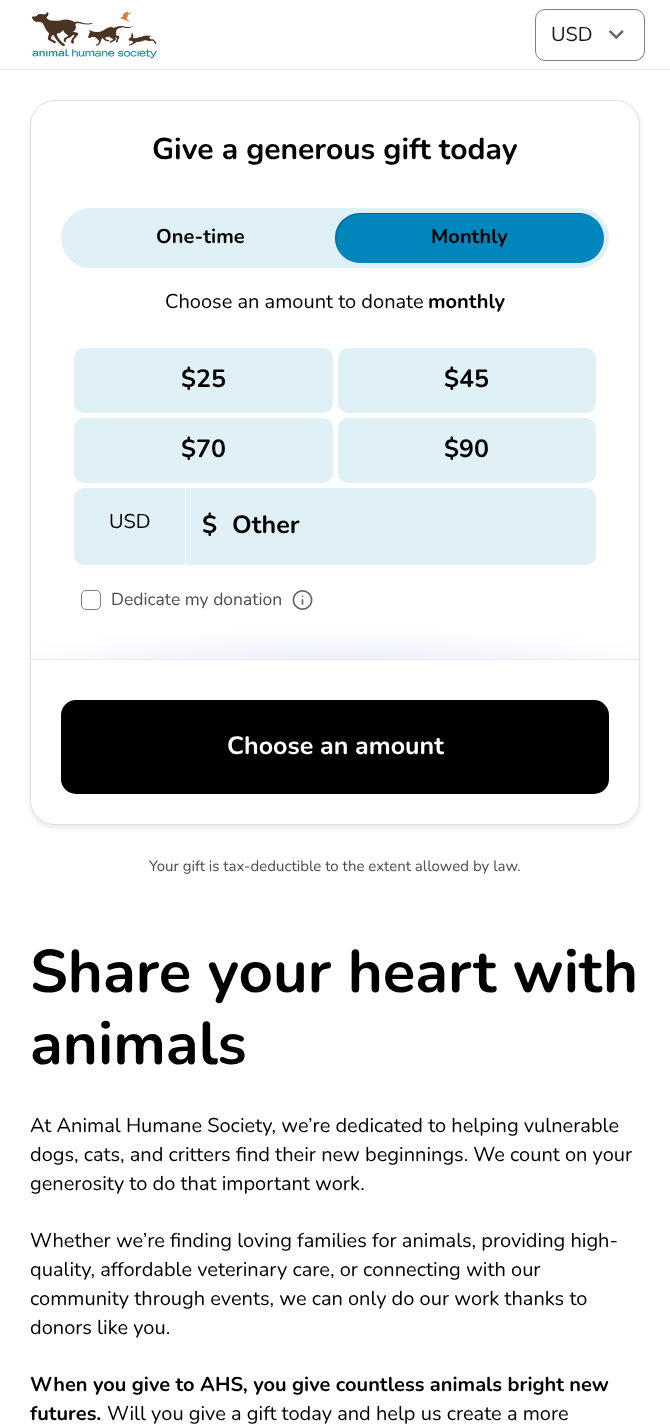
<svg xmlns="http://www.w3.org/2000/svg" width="670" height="1427">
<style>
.a{font:20px Nunito;fill:#1a1919}
.b{font:bold 30px Nunito;fill:#000}
.c{font:bold 20px Nunito;fill:#000}
.d{font:20px Nunito;fill:#000}
.e{font:bold 25px Nunito;fill:#000}
.f{font:17.5px Nunito;fill:#504c49}
.g{font:bold 25px Nunito;fill:#fff}
.h{font:15px Nunito;fill:#504c49}
.i{font:bold 60px Nunito;fill:#000}
</style>
<defs>
<radialGradient id="g1" gradientUnits="userSpaceOnUse" cx="0" cy="0" r="1" gradientTransform="matrix(378 0 0 46 335 670)"><stop offset="0" stop-color="#e8ebf9"/><stop offset="0.96" stop-color="#fff"/></radialGradient>
</defs>
<rect width="100%" height="100%" fill="#fff"/>
<path fill="#e6e6e6" d="M0 69h670v1H0z"/>
<image href="1.png" x="31" y="11" width="126" height="48"/>
<image href="2.png" x="608" y="30" width="16" height="10"/>
<rect fill="none" stroke="#857f7a" x="535.5" y="9.5" width="109" height="51" rx="9.5"/>
<rect fill="#191d221a" filter="blur(2.5px)" x="30" y="103" width="610" height="725" rx="25"/>
<rect fill="#fff" x="30" y="100" width="610" height="725" rx="25"/>
<rect fill="none" stroke="#0000001f" x="30.5" y="100.5" width="609" height="724" rx="24.5"/>
<rect fill="#e0f0f7" x="61" y="208" width="548" height="60" rx="30"/>
<rect fill="#0086bc" x="335" y="213" width="269" height="50" rx="25"/>
<path fill="#0000003d" d="M361 214h219c6 0 12 2 16 6c-5-5-10-7-17-7h-219c-14 0-25 11-25 25c0 7 2 12 7 17c-13-16-2-41 19-41z"/>
<rect fill="#e0f0f7" x="74" y="348" width="259" height="65" rx="10"/>
<rect fill="#e0f0f7" x="338" y="348" width="258" height="65" rx="10"/>
<rect fill="#e0f0f7" x="74" y="418" width="259" height="65" rx="10"/>
<rect fill="#e0f0f7" x="338" y="418" width="258" height="65" rx="10"/>
<path fill="#e0f0f7" d="M84 488h101v77h-101c-5.5 0-10-4.5-10-10v-57c0-5.5 4.5-10 10-10z"/>
<path fill="#e0f0f7" d="M186 488h400c5.5 0 10 4.5 10 10v57c0 5.5-4.5 10-10 10h-400z"/>
<rect fill="none" stroke="#847f7b" x="81.5" y="590.5" width="19" height="19" rx="4.5"/>
<image href="3.png" x="292" y="590" width="21" height="20"/>
<path fill="url(#g1)" d="M31 631h608v28H31z"/>
<path fill="#e0f0f7" d="M31 659h608v1H31z"/>
<rect fill="#000" x="61" y="700" width="548" height="94" rx="15"/>
<text class="a" x="551" y="41">USD</text>
<text class="b" x="152" y="159">Give a generous gift today</text>
<text class="c" x="156" y="243">One-time</text>
<text class="c" x="431" y="243">Monthly</text>
<text class="d" x="165" y="308">Choose an amount to donate</text>
<text class="c" x="428" y="308">monthly</text>
<text class="e" x="181" y="387">$25</text>
<text class="e" x="444" y="387">$45</text>
<text class="e" x="181" y="457">$70</text>
<text class="e" x="444" y="457">$90</text>
<text class="d" x="109" y="528">USD</text>
<text class="e" x="202" y="533">$</text>
<text class="e" x="232" y="533">Other</text>
<text class="f" x="111" y="605">Dedicate my donation</text>
<text class="g" x="227" y="754">Choose an amount</text>
<text class="h" x="149" y="871">Your gift is tax-deductible to the extent allowed by law.</text>
<text class="i" x="30" y="992">Share your heart with</text>
<text class="i" x="30" y="1064">animals</text>
<text class="d" x="30" y="1132">At Animal Humane Society, we’re dedicated to helping vulnerable</text>
<text class="d" x="30" y="1161">dogs, cats, and critters find their new beginnings. We count on your</text>
<text class="d" x="30" y="1190">generosity to do that important work.</text>
<text class="d" x="30" y="1247">Whether we’re finding loving families for animals, providing high-</text>
<text class="d" x="30" y="1276">quality, affordable veterinary care, or connecting with our</text>
<text class="d" x="30" y="1305">community through events, we can only do our work thanks to</text>
<text class="d" x="30" y="1334">donors like you.</text>
<text class="c" x="30" y="1391">When you give to AHS, you give countless animals bright new</text>
<text class="c" x="30" y="1420">futures.</text>
<text class="d" x="107" y="1420">Will you give a gift today and help us create a more</text>
</svg>
